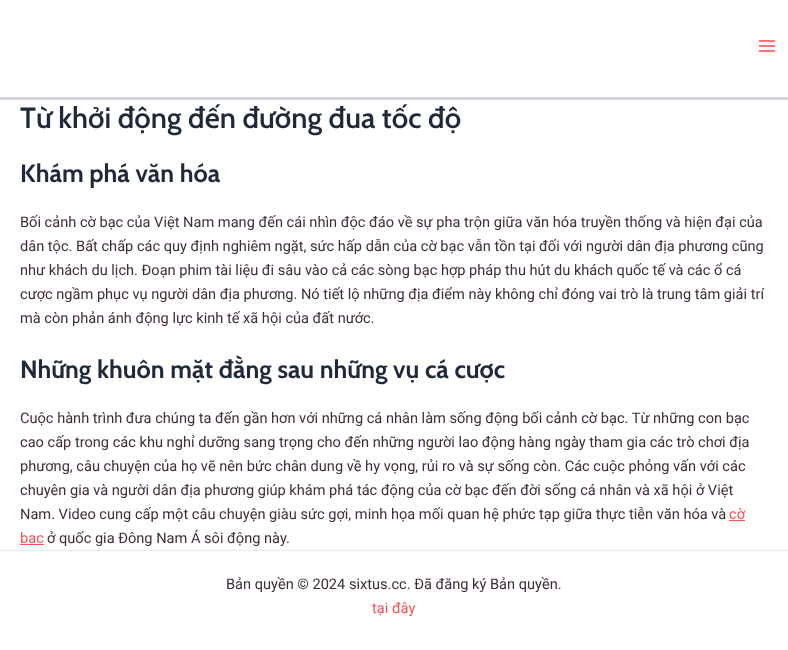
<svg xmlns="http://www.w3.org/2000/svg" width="788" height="650">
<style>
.a{font:600 29.2px Cabin;fill:#1e293b}
.b{font:bold 25px Cabin;fill:#1e293b}
.c{font:14.6px Roboto;fill:#402f30}
.d{font:14.6px Roboto;fill:#fd5056}
</style>
<rect width="100%" height="100%" fill="#fff"/>
<path fill="#d1d5db" d="M0 97h788v3H0z"/>
<image href="1.png" x="758" y="40" width="18" height="12"/>
<path fill="#fd5056" d="M729 520h16v1H729z"/>
<path fill="#fd5056" d="M20 544h24v1H20z"/>
<path fill="#eaeaea" d="M0 550h788v1H0z"/>
<text class="a" x="20" y="128">Từ khởi động đến đường đua tốc độ</text>
<text class="b" x="20" y="182">Khám phá văn hóa</text>
<text class="c" x="20" y="227">Bối cảnh cờ bạc của Việt Nam mang đến cái nhìn độc đáo về sự pha trộn giữa văn hóa truyền thống và hiện đại của</text>
<text class="c" x="20" y="251">dân tộc. Bất chấp các quy định nghiêm ngặt, sức hấp dẫn của cờ bạc vẫn tồn tại đối với người dân địa phương cũng</text>
<text class="c" x="20" y="275">như khách du lịch. Đoạn phim tài liệu đi sâu vào cả các sòng bạc hợp pháp thu hút du khách quốc tế và các ổ cá</text>
<text class="c" x="20" y="299">cược ngầm phục vụ người dân địa phương. Nó tiết lộ những địa điểm này không chỉ đóng vai trò là trung tâm giải trí</text>
<text class="c" x="20" y="323">mà còn phản ánh động lực kinh tế xã hội của đất nước.</text>
<text class="b" x="20" y="378">Những khuôn mặt đằng sau những vụ cá cược</text>
<text class="c" x="20" y="423">Cuộc hành trình đưa chúng ta đến gần hơn với những cá nhân làm sống động bối cảnh cờ bạc. Từ những con bạc</text>
<text class="c" x="20" y="447">cao cấp trong các khu nghỉ dưỡng sang trọng cho đến những người lao động hàng ngày tham gia các trò chơi địa</text>
<text class="c" x="20" y="471">phương, câu chuyện của họ vẽ nên bức chân dung về hy vọng, rủi ro và sự sống còn. Các cuộc phỏng vấn với các</text>
<text class="c" x="20" y="495">chuyên gia và người dân địa phương giúp khám phá tác động của cờ bạc đến đời sống cá nhân và xã hội ở Việt</text>
<text class="c" x="20" y="519">Nam. Video cung cấp một câu chuyện giàu sức gợi, minh họa mối quan hệ phức tạp giữa thực tiễn văn hóa và</text>
<text class="d" x="729" y="519">cờ</text>
<text class="d" x="20" y="543">bạc</text>
<text class="c" x="47" y="543">ở quốc gia Đông Nam Á sôi động này.</text>
<text class="c" x="226" y="589">Bản quyền © 2024 sixtus.cc. Đã đăng ký Bản quyền.</text>
<text class="d" x="372" y="613">tại đây</text>
</svg>
